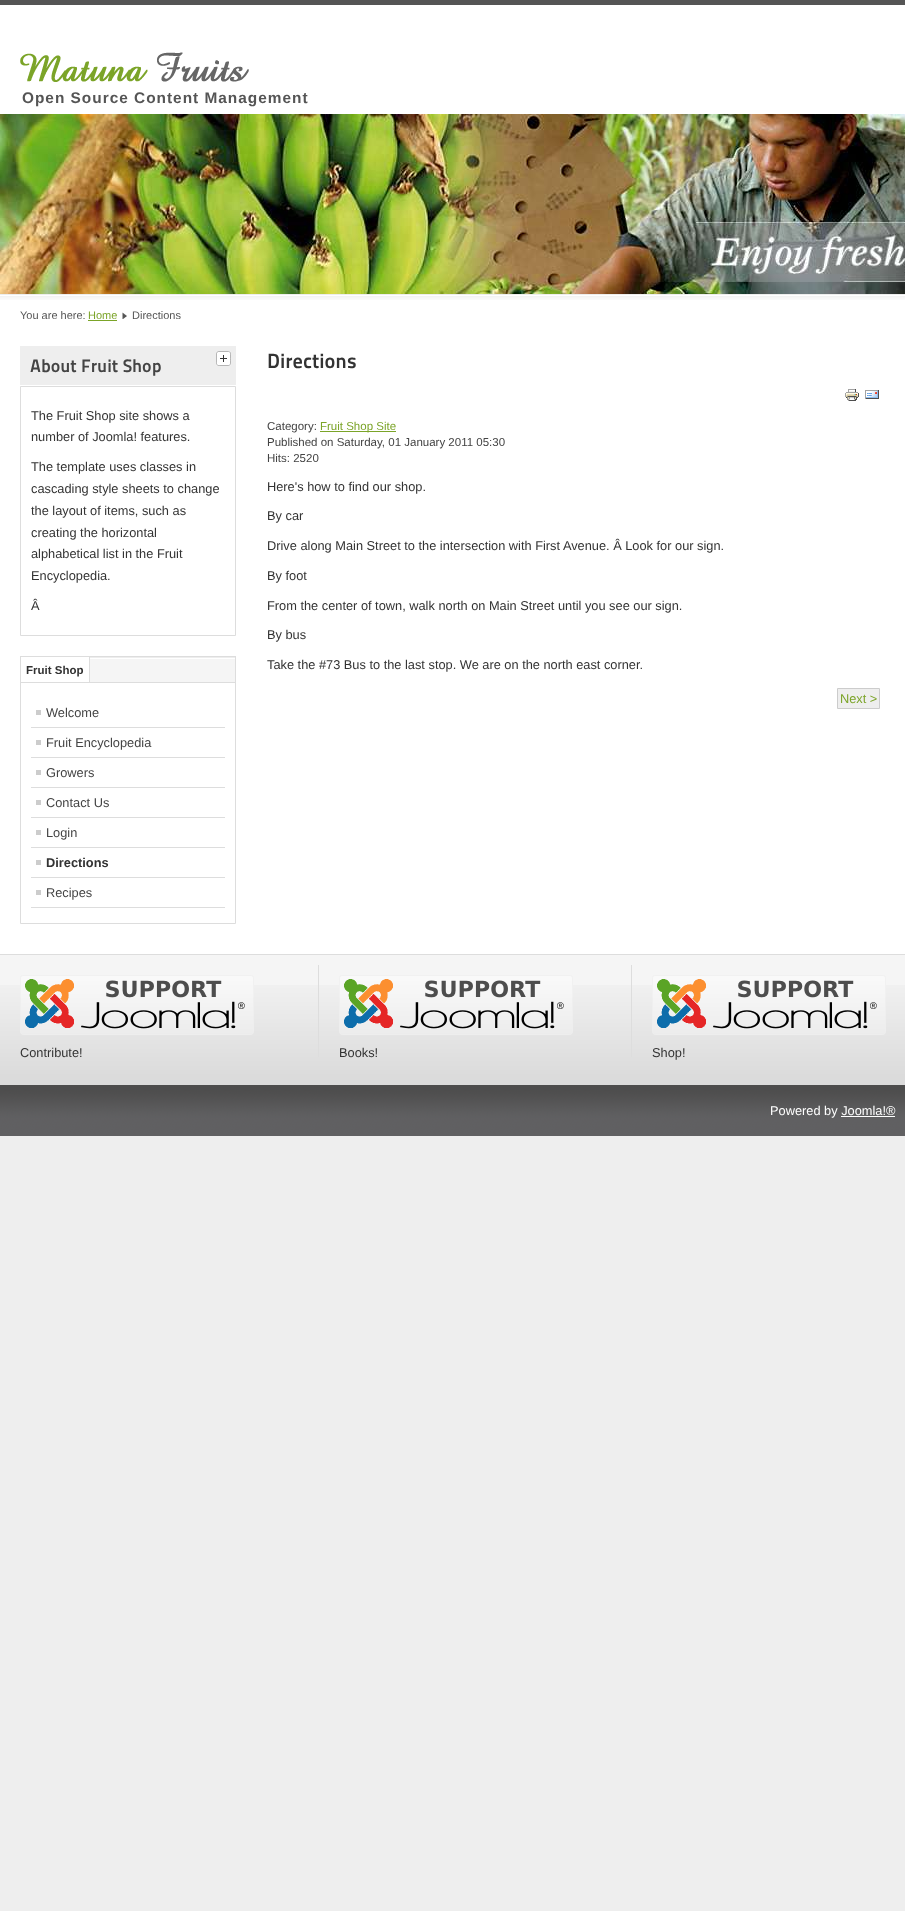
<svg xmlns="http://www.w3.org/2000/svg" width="905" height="1911">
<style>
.a{font:bold 15.4px Liberation Sans;letter-spacing:1px;fill:#555}
.b{font:11px Liberation Sans;fill:#555}
.c{font:11px Liberation Sans;fill:#7ba428}
.d{font:800 18px 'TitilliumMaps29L';fill:#444}
.e{font:12.8px Liberation Sans;fill:#333}
.f{font:bold 11.5px Liberation Sans;fill:#333}
.g{font:12.8px Liberation Sans;fill:#444}
.h{font:bold 12.8px Liberation Sans;fill:#333}
.i{font:800 20.5px 'TitilliumMaps29L';fill:#333}
.j{font:11.5px Liberation Sans;fill:#444}
.k{font:11.5px Liberation Sans;fill:#7ba428}
.l{font:12.8px Liberation Sans;fill:#7ba428}
.m{font:12.8px Liberation Sans;fill:#fff}
</style>
<rect width="100%" height="100%" fill="#eee"/>
<path fill="#fff" d="M0 5h905v109H0z"/>
<path fill="#555" d="M0 0h905v5H0z"/>
<image href="1.png" x="20" y="52" width="229" height="30"/>
<image href="2.png" x="0" y="114" width="905" height="180"/>
<path fill="#fff" d="M0 300h905v654H0z"/>
<image href="3.png" x="0" y="294" width="905" height="6"/>
<path fill="#7ba428" d="M88 320h29v1H88z"/>
<image href="4.png" x="122" y="312" width="5" height="7"/>
<path fill="#eee" d="M20 346h216v39H20z"/>
<image href="5.png" x="216" y="351" width="15" height="15"/>
<path fill="none" stroke="#ddd" d="M20.5 386.5h215v249H20.5z"/>
<path fill="#f5f5f5" d="M90 659h145v23H90z"/>
<image href="6.png" x="90" y="657" width="145" height="2"/>
<path fill="#ddd" d="M20 656h216v1H20z"/>
<path fill="#ddd" d="M235 656h1v27H235z"/>
<path fill="#ddd" d="M20 656h1v27H20z"/>
<path fill="#ddd" d="M89 657h1v26H89z"/>
<path fill="none" stroke="#ddd" d="M20.5 682.5h215v241H20.5z"/>
<path fill="#ddd" d="M31 727h194v1H31z"/>
<path fill="#ccc" d="M36 710h5v5H36z"/>
<path fill="#ddd" d="M31 757h194v1H31z"/>
<path fill="#ccc" d="M36 740h5v5H36z"/>
<path fill="#ddd" d="M31 787h194v1H31z"/>
<path fill="#ccc" d="M36 770h5v5H36z"/>
<path fill="#ddd" d="M31 817h194v1H31z"/>
<path fill="#ccc" d="M36 800h5v5H36z"/>
<path fill="#ddd" d="M31 847h194v1H31z"/>
<path fill="#ccc" d="M36 830h5v5H36z"/>
<path fill="#ddd" d="M31 877h194v1H31z"/>
<path fill="#ccc" d="M36 860h5v5H36z"/>
<path fill="#ddd" d="M31 907h194v1H31z"/>
<path fill="#ccc" d="M36 890h5v5H36z"/>
<image href="7.png" x="845" y="389" width="14" height="12"/>
<image href="8.png" x="865" y="390" width="14" height="9"/>
<path fill="#7ba428" d="M320 431h76v1H320z"/>
<path fill="#eee" stroke="#ccc" d="M837.5 688.5h42v20H837.5z"/>
<path fill="#f5f5f5" d="M0 955h905v30H0z"/>
<image href="9.png" x="0" y="985" width="905" height="100"/>
<path fill="#ddd" d="M0 954h905v1H0z"/>
<path fill="#ddd" d="M318 965h1v92H318z"/>
<image href="10.png" x="20" y="975" width="234" height="60"/>
<image href="10.png" x="339" y="975" width="234" height="60"/>
<path fill="#ddd" d="M631 965h1v92H631z"/>
<image href="10.png" x="652" y="975" width="234" height="60"/>
<image href="11.png" x="0" y="1085" width="905" height="51"/>
<path fill="#fff" d="M841 1116h54v1H841z"/>
<text class="a" x="22" y="103">Open Source Content Management</text>
<text class="b" x="20" y="319">You are here:</text>
<text class="c" x="88" y="319">Home</text>
<text class="b" x="132" y="319">Directions</text>
<text class="d" x="30" y="372">About Fruit Shop</text>
<text class="e" x="31" y="420">The Fruit Shop site shows a</text>
<text class="e" x="31" y="441">number of Joomla! features.</text>
<text class="e" x="31" y="471">The template uses classes in</text>
<text class="e" x="31" y="493">cascading style sheets to change</text>
<text class="e" x="31" y="515">the layout of items, such as</text>
<text class="e" x="31" y="537">creating the horizontal</text>
<text class="e" x="31" y="558">alphabetical list in the Fruit</text>
<text class="e" x="31" y="580">Encyclopedia.</text>
<text class="e" x="31" y="610">Â</text>
<text class="f" x="26" y="674">Fruit Shop</text>
<text class="g" x="46" y="717">Welcome</text>
<text class="g" x="46" y="747">Fruit Encyclopedia</text>
<text class="g" x="46" y="777">Growers</text>
<text class="g" x="46" y="807">Contact Us</text>
<text class="g" x="46" y="837">Login</text>
<text class="h" x="46" y="867">Directions</text>
<text class="g" x="46" y="897">Recipes</text>
<text class="i" x="267" y="368">Directions</text>
<text class="j" x="267" y="430">Category:</text>
<text class="k" x="320" y="430">Fruit Shop Site</text>
<text class="j" x="267" y="446">Published on Saturday, 01 January 2011 05:30</text>
<text class="j" x="267" y="462">Hits: 2520</text>
<text class="e" x="267" y="491">Here's how to find our shop.</text>
<text class="e" x="267" y="520">By car</text>
<text class="e" x="267" y="550">Drive along Main Street to the intersection with First Avenue. Â Look for our sign.</text>
<text class="e" x="267" y="580">By foot</text>
<text class="e" x="267" y="610">From the center of town, walk north on Main Street until you see our sign.</text>
<text class="e" x="267" y="639">By bus</text>
<text class="e" x="267" y="669">Take the #73 Bus to the last stop. We are on the north east corner.</text>
<text class="l" x="840" y="703">Next &gt;</text>
<text class="e" x="20" y="1057">Contribute!</text>
<text class="e" x="339" y="1057">Books!</text>
<text class="e" x="652" y="1057">Shop!</text>
<text class="m" x="770" y="1115">Powered by Joomla!®</text>
</svg>
